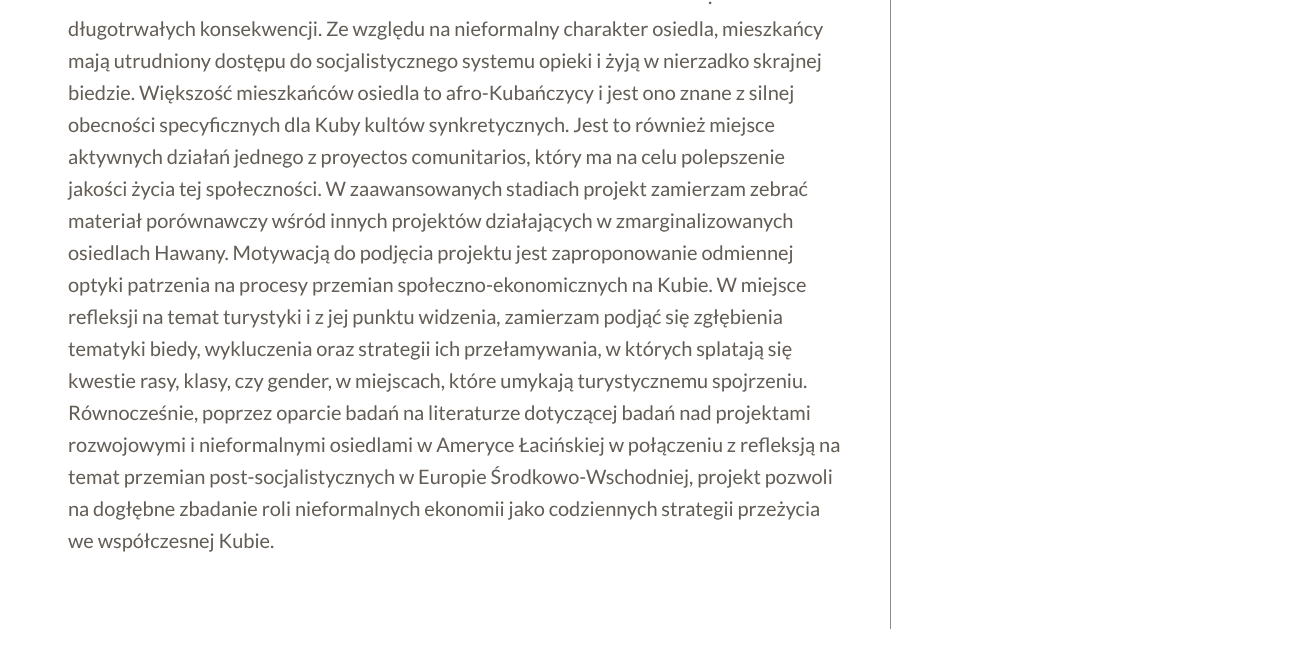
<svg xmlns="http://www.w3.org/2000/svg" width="1311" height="665">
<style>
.a{font:20px Lato;fill:#635d56}
</style>
<rect width="100%" height="100%" fill="#fff"/>
<path fill="#8b8b8b" d="M890 0h1v629H890z"/>
<text class="a" x="708" y="4">.</text>
<text class="a" x="68" y="36">długotrwałych konsekwencji. Ze względu na nieformalny charakter osiedla, mieszkańcy</text>
<text class="a" x="68" y="68">mają utrudniony dostępu do socjalistycznego systemu opieki i żyją w nierzadko skrajnej</text>
<text class="a" x="68" y="100">biedzie. Większość mieszkańców osiedla to afro-Kubańczycy i jest ono znane z silnej</text>
<text class="a" x="68" y="132">obecności specyficznych dla Kuby kultów synkretycznych. Jest to również miejsce</text>
<text class="a" x="68" y="164">aktywnych działań jednego z proyectos comunitarios, który ma na celu polepszenie</text>
<text class="a" x="68" y="196">jakości życia tej społeczności. W zaawansowanych stadiach projekt zamierzam zebrać</text>
<text class="a" x="68" y="228">materiał porównawczy wśród innych projektów działających w zmarginalizowanych</text>
<text class="a" x="68" y="260">osiedlach Hawany. Motywacją do podjęcia projektu jest zaproponowanie odmiennej</text>
<text class="a" x="68" y="292">optyki patrzenia na procesy przemian społeczno-ekonomicznych na Kubie. W miejsce</text>
<text class="a" x="68" y="324">refleksji na temat turystyki i z jej punktu widzenia, zamierzam podjąć się zgłębienia</text>
<text class="a" x="68" y="356">tematyki biedy, wykluczenia oraz strategii ich przełamywania, w których splatają się</text>
<text class="a" x="68" y="388">kwestie rasy, klasy, czy gender, w miejscach, które umykają turystycznemu spojrzeniu.</text>
<text class="a" x="68" y="420">Równocześnie, poprzez oparcie badań na literaturze dotyczącej badań nad projektami</text>
<text class="a" x="68" y="452">rozwojowymi i nieformalnymi osiedlami w Ameryce Łacińskiej w połączeniu z refleksją na</text>
<text class="a" x="68" y="484">temat przemian post-socjalistycznych w Europie Środkowo-Wschodniej, projekt pozwoli</text>
<text class="a" x="68" y="516">na dogłębne zbadanie roli nieformalnych ekonomii jako codziennych strategii przeżycia</text>
<text class="a" x="68" y="548">we współczesnej Kubie.</text>
</svg>
